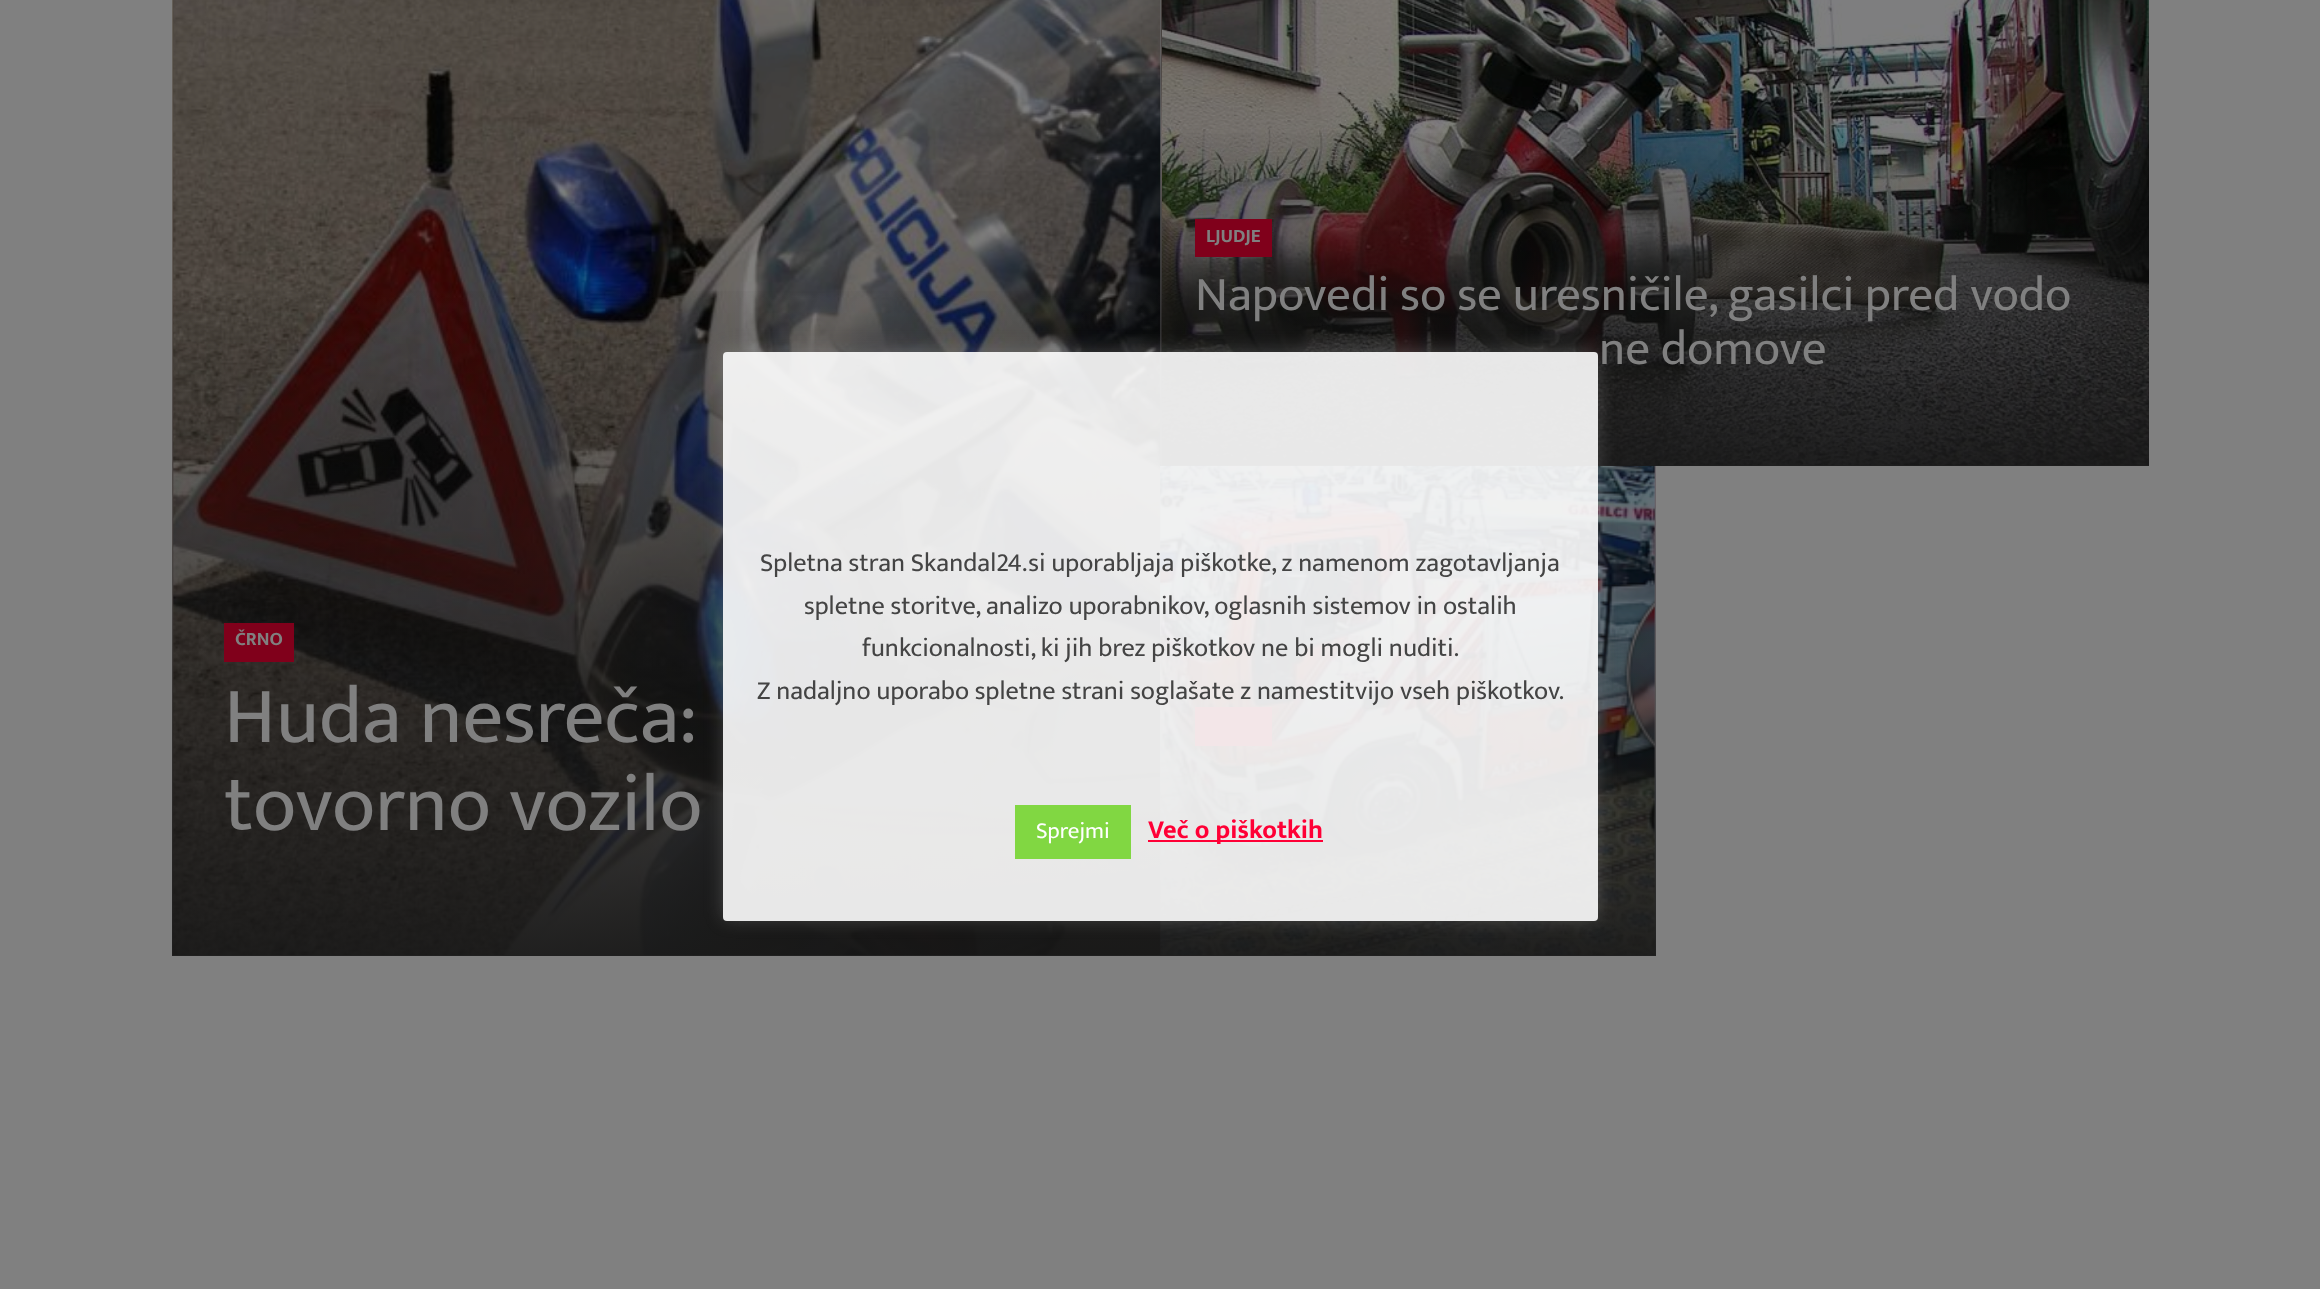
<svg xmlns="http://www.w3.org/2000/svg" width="2320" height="1289">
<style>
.a{font:bold 19px Mukta;fill:#808080}
.b{font:49px Mukta;fill:#808080}
.c{font:80.5px Mukta;fill:#808080}
.d{font:26.25px Mukta;fill:#444}
.e{font:23px Mukta;fill:#fff}
.f{font:bold 26.25px Mukta;fill:#ff0036}
</style>
<defs>
<linearGradient id="g1" gradientUnits="userSpaceOnUse" x1="1655" y1="122" x2="1655" y2="466"><stop offset="0" stop-color="#181818" stop-opacity="0"/><stop offset="1" stop-color="#181818" stop-opacity="0.91"/></linearGradient>
<linearGradient id="g2" gradientUnits="userSpaceOnUse" x1="666" y1="269" x2="666" y2="956"><stop offset="0" stop-color="#181818" stop-opacity="0"/><stop offset="1" stop-color="#181818" stop-opacity="0.91"/></linearGradient>
<linearGradient id="g3" gradientUnits="userSpaceOnUse" x1="1408" y1="613" x2="1408" y2="956"><stop offset="0" stop-color="#181818" stop-opacity="0"/><stop offset="1" stop-color="#181818" stop-opacity="0.91"/></linearGradient>
<clipPath id="clip1"><path d="M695 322h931v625h-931zm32 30h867c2 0 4 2 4 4v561c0 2-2 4-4 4h-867c-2 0-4-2-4-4v-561c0-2 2-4 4-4z" clip-rule="evenodd"/></clipPath>
</defs>
<rect width="100%" height="100%" fill="#808080"/>
<image href="1.png" x="1161" y="0" width="988" height="466"/>
<image href="2.png" x="1162" y="0" width="987" height="466"/>
<image href="3.png" x="172" y="0" width="989" height="956"/>
<image href="4.png" x="173" y="0" width="988" height="956"/>
<image href="5.png" x="1160" y="465" width="496" height="491"/>
<image href="6.png" x="1160" y="465" width="495" height="491"/>
<path fill="url(#g1)" d="M1160 133h989v333H1160z"/>
<path fill="#80001b" d="M1195 219h77v38H1195z"/>
<path fill="url(#g2)" d="M172 291h988v665H172z"/>
<path fill="#80001b" d="M224 623h70v39H224z"/>
<path fill="url(#g3)" d="M1160 624h496v332H1160z"/>
<path fill="#80001b" d="M1195 707h77v39H1195z"/>
<g clip-path="url(#clip1)">
<rect fill="#acabab4d" filter="blur(9px)" x="723" y="350" width="875" height="569" rx="4"/>
</g>
<rect fill="#ffffffe6" x="723" y="352" width="875" height="569" rx="4"/>
<path fill="#81d742" d="M1015 805h116v54H1015z"/>
<path fill="#ff0036" d="M1148 840h175v2H1148z"/>
<text class="a" x="1206" y="242">LJUDJE</text>
<text class="b" x="1195" y="310">Napovedi so se uresničile, gasilci pred vodo</text>
<text class="b" x="1599" y="364">ne domove</text>
<text class="a" x="235" y="645">ČRNO</text>
<text class="c" x="224" y="742">Huda nesreča:</text>
<text class="c" x="224" y="830">tovorno vozilo</text>
<text class="d" x="760" y="571">Spletna stran Skandal24.si uporabljaja piškotke, z namenom zagotavljanja</text>
<text class="d" x="804" y="614">spletne storitve, analizo uporabnikov, oglasnih sistemov in ostalih</text>
<text class="d" x="862" y="656">funkcionalnosti, ki jih brez piškotkov ne bi mogli nuditi.</text>
<text class="d" x="757" y="699">Z nadaljno uporabo spletne strani soglašate z namestitvijo vseh piškotkov.</text>
<text class="e" x="1036" y="838">Sprejmi</text>
<text class="f" x="1148" y="838">Več o piškotkih</text>
</svg>
